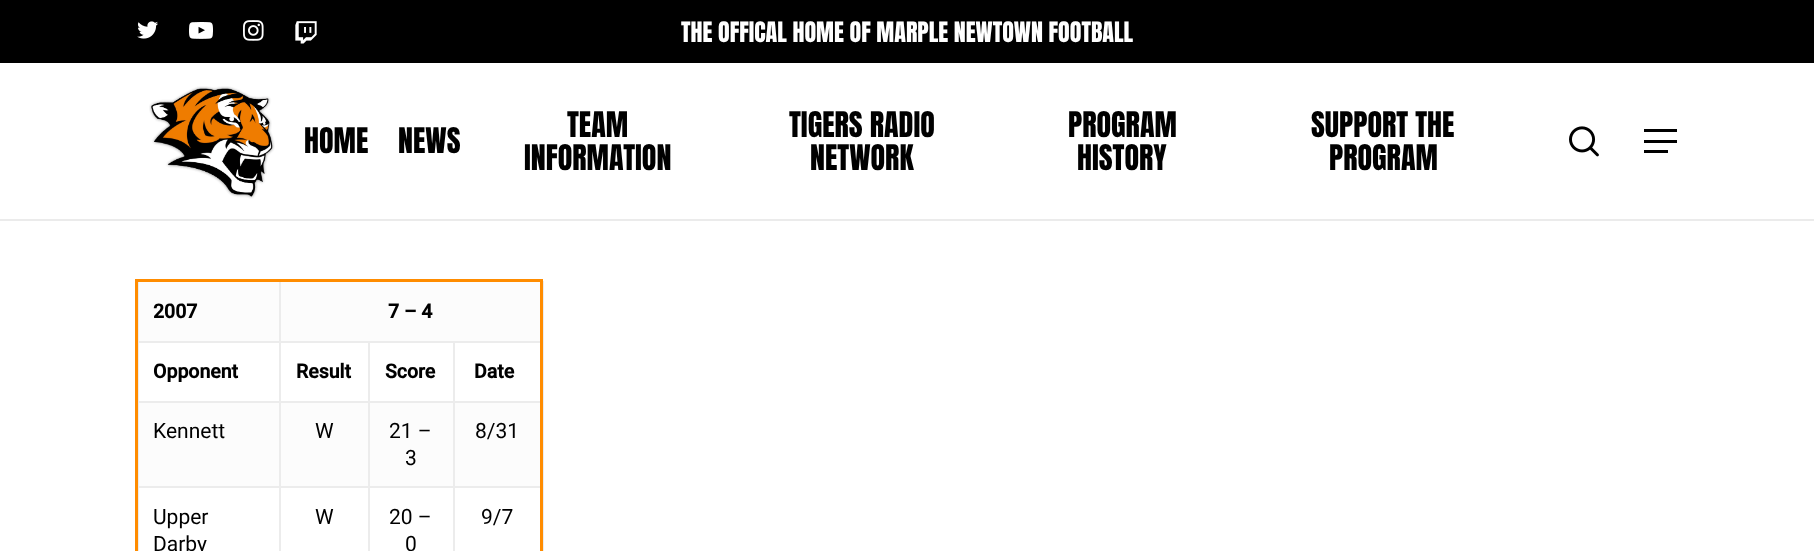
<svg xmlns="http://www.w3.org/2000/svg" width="1814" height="551">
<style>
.a{font:24px Anton;fill:#fff}
.b{font:30px Anton;fill:#000}
.c{font:bold 19.5px Roboto;fill:#000}
.d{font:21px Roboto;fill:#000}
</style>
<rect width="100%" height="100%" fill="#fff"/>
<path fill="#ebebeb" d="M0 219h1814v2H0z"/>
<path fill="#000" d="M0 0h1814v63H0z"/>
<image href="1.png" x="137" y="21" width="21" height="18"/>
<image href="2.png" x="189" y="22" width="24" height="17"/>
<image href="3.png" x="243" y="20" width="21" height="21"/>
<image href="4.png" x="295" y="21" width="22" height="23"/>
<image href="5.png" x="149" y="86" width="126" height="113"/>
<image href="6.png" x="1569" y="126" width="30" height="31"/>
<path fill="#000" d="M1644 129h33v3H1644z"/>
<path fill="#000" d="M1644 150h24v3H1644z"/>
<path fill="#000" d="M1644 140h33v3H1644z"/>
<path fill="#fcfcfc" d="M139 282h401v59H139z"/>
<path fill="#fcfcfc" d="M139 403h401v83H139z"/>
<path fill="#ececec" d="M453 486h2v65H453z"/>
<path fill="#ececec" d="M453 486h90v2H453z"/>
<path fill="#ececec" d="M453 401h2v87H453z"/>
<path fill="#ececec" d="M453 401h90v2H453z"/>
<path fill="#ececec" d="M453 341h2v61H453z"/>
<path fill="#ececec" d="M368 486h2v65H368z"/>
<path fill="#ececec" d="M368 486h87v2H368z"/>
<path fill="#ececec" d="M368 401h2v87H368z"/>
<path fill="#ececec" d="M368 401h87v2H368z"/>
<path fill="#ececec" d="M368 341h2v61H368z"/>
<path fill="#ececec" d="M279 486h2v65H279z"/>
<path fill="#ececec" d="M279 486h90v2H279z"/>
<path fill="#ececec" d="M279 401h2v87H279z"/>
<path fill="#ececec" d="M279 401h90v2H279z"/>
<path fill="#ececec" d="M279 341h2v61H279z"/>
<path fill="#ececec" d="M279 341h264v2H279z"/>
<path fill="#ececec" d="M279 281h2v61H279z"/>
<path fill="#ececec" d="M138 486h1v65H138z"/>
<path fill="#ececec" d="M137 486h144v2H137z"/>
<path fill="#ececec" d="M138 401h1v87H138z"/>
<path fill="#ececec" d="M137 401h144v2H137z"/>
<path fill="#ececec" d="M138 341h1v61H138z"/>
<path fill="#ececec" d="M137 341h144v2H137z"/>
<path fill="#ececec" d="M138 281h1v61H138z"/>
<path fill="#ff8c00" d="M135 279h408v3H135z"/>
<path fill="#ff8c00" d="M540 279h3v272H540z"/>
<path fill="#ff8c00" d="M135 279h3v272H135z"/>
<path fill="#ececec" d="M543 281h1v270H543z"/>
<text class="a" x="681" y="42">THE OFFICAL HOME OF MARPLE NEWTOWN FOOTBALL</text>
<text class="b" x="304" y="153">HOME</text>
<text class="b" x="398" y="153">NEWS</text>
<text class="b" x="567" y="137">TEAM</text>
<text class="b" x="524" y="170">INFORMATION</text>
<text class="b" x="789" y="137">TIGERS RADIO</text>
<text class="b" x="810" y="170">NETWORK</text>
<text class="b" x="1068" y="137">PROGRAM</text>
<text class="b" x="1077" y="170">HISTORY</text>
<text class="b" x="1311" y="137">SUPPORT THE</text>
<text class="b" x="1329" y="170">PROGRAM</text>
<text class="c" x="153" y="318">2007</text>
<text class="c" x="388" y="318">7 – 4</text>
<text class="c" x="153" y="378">Opponent</text>
<text class="c" x="296" y="378">Result</text>
<text class="c" x="385" y="378">Score</text>
<text class="c" x="474" y="378">Date</text>
<text class="d" x="153" y="438">Kennett</text>
<text class="d" x="315" y="438">W</text>
<text class="d" x="389" y="438">21 –</text>
<text class="d" x="405" y="465">3</text>
<text class="d" x="475" y="438">8/31</text>
<text class="d" x="153" y="524">Upper</text>
<text class="d" x="153" y="551">Darby</text>
<text class="d" x="315" y="524">W</text>
<text class="d" x="389" y="524">20 –</text>
<text class="d" x="405" y="551">0</text>
<text class="d" x="481" y="524">9/7</text>
</svg>
